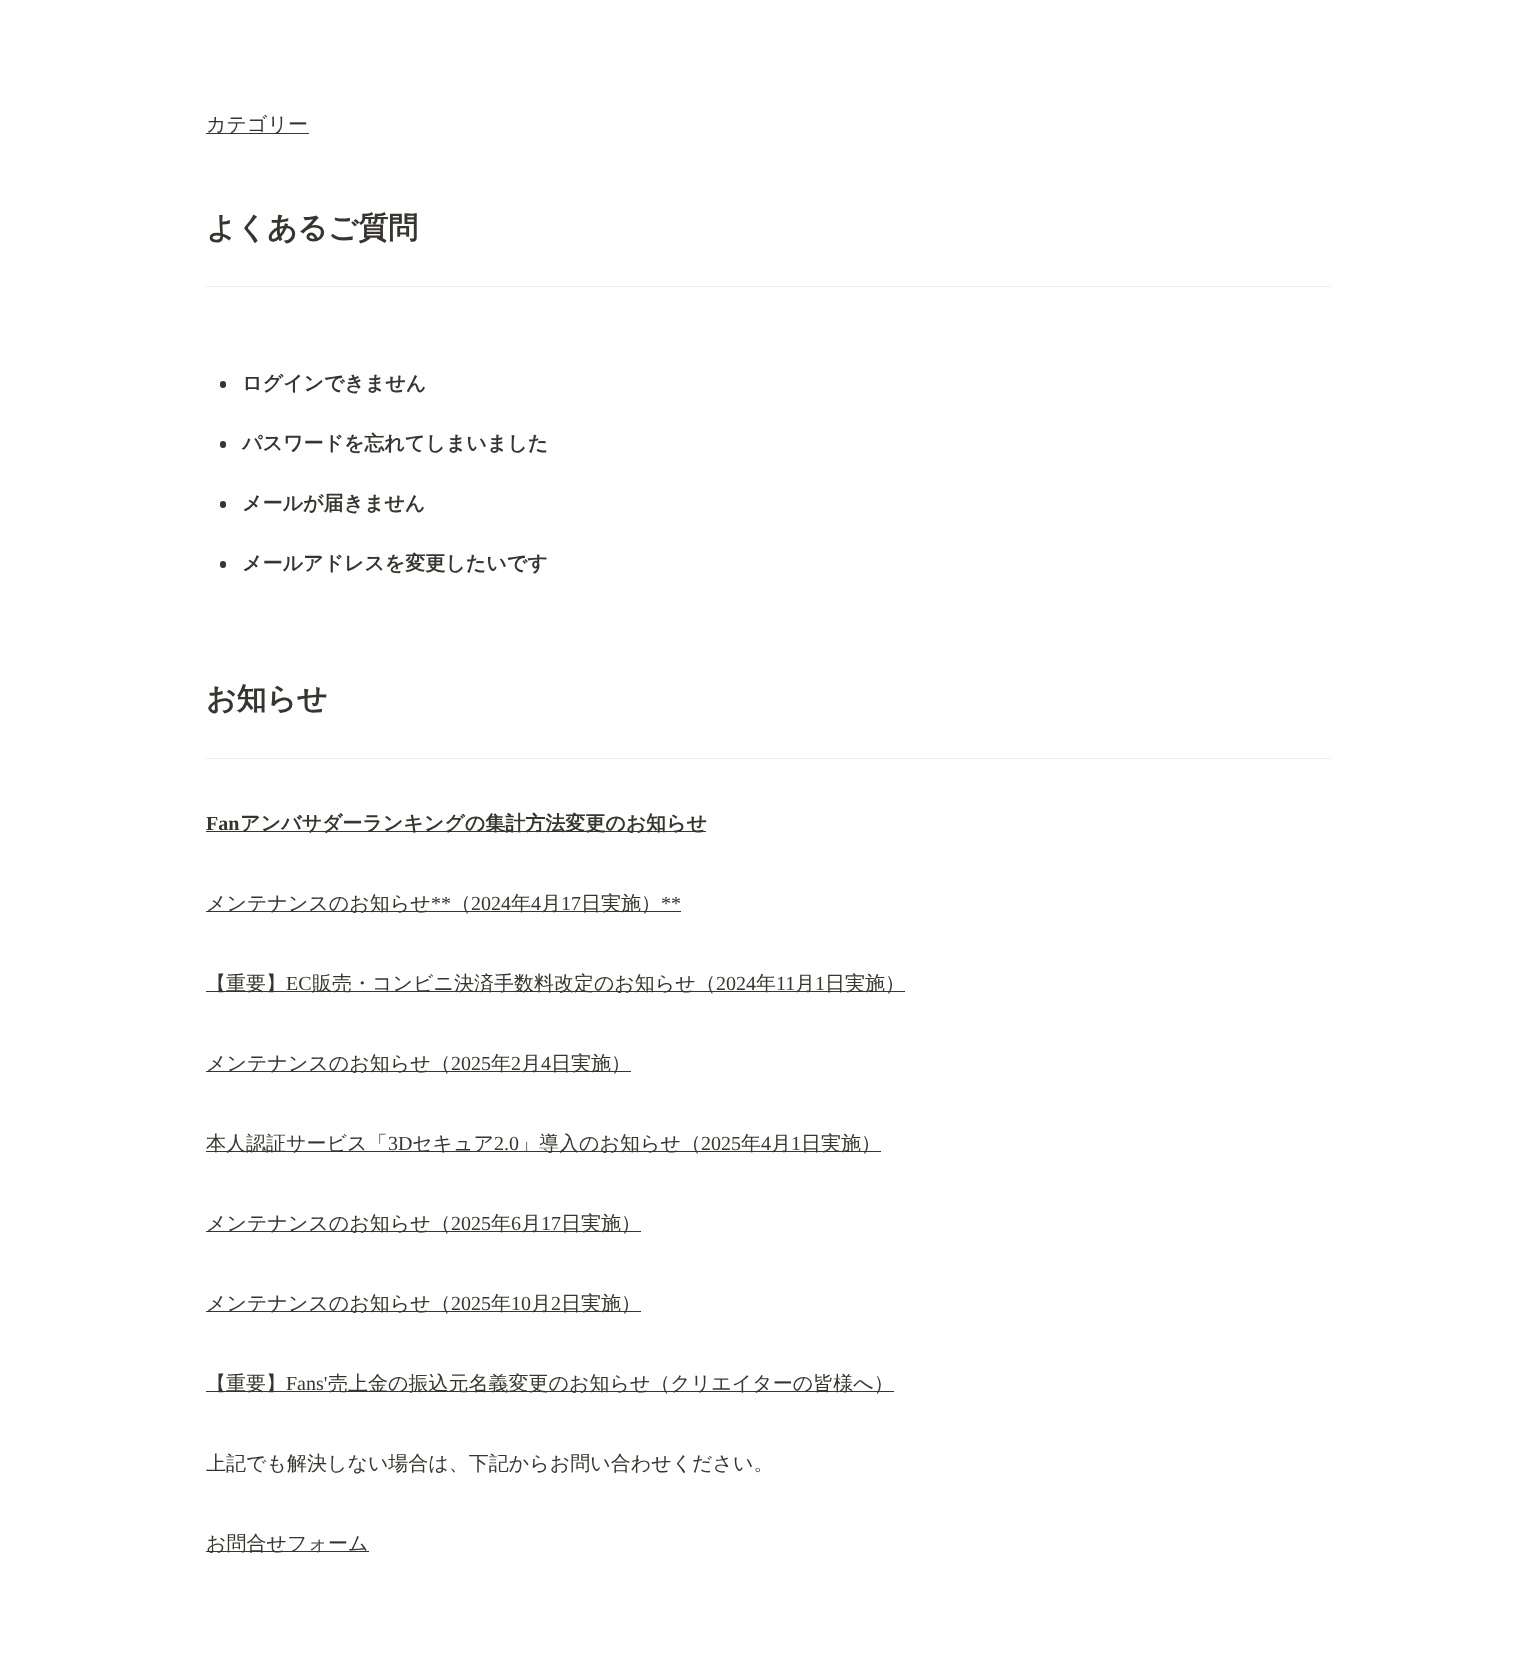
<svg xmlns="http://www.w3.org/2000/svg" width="1537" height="1660">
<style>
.a{font:500 20px WenQuanYi Zen Hei;fill:#37352f}
.b{font:bold 30px WenQuanYi Zen Hei;letter-spacing:-0.25px;fill:#37352f}
.c{font:bold 20px WenQuanYi Zen Hei;fill:#37352f}
.d{font:bold 20px Liberation Serif;fill:#37352f}
.e{font:20px Liberation Serif;fill:#37352f}
</style>
<rect width="100%" height="100%" fill="#fff"/>
<path fill="#37352f" d="M206 133h103v1H206z"/>
<path fill="#ededec" d="M206 286h1125v1H206z"/>
<rect fill="#37352f" x="220" y="381" width="6" height="7" rx="3"/>
<rect fill="#37352f" x="220" y="441" width="6" height="7" rx="3"/>
<rect fill="#37352f" x="220" y="501" width="6" height="7" rx="3"/>
<rect fill="#37352f" x="220" y="561" width="6" height="7" rx="3"/>
<path fill="#ededec" d="M206 758h1125v1H206z"/>
<path fill="#37352f" d="M206 831h500v1H206z"/>
<path fill="#37352f" d="M206 911h475v1H206z"/>
<path fill="#37352f" d="M206 991h699v1H206z"/>
<path fill="#37352f" d="M206 1071h425v1H206z"/>
<path fill="#37352f" d="M206 1151h675v1H206z"/>
<path fill="#37352f" d="M206 1231h435v1H206z"/>
<path fill="#37352f" d="M206 1311h435v1H206z"/>
<path fill="#37352f" d="M206 1391h688v1H206z"/>
<path fill="#37352f" d="M206 1551h163v1H206z"/>
<text class="a" x="206" y="131">カテゴリー</text>
<text class="b" x="206" y="238">よくあるご質問</text>
<text class="c" x="242" y="390">ログインできません</text>
<text class="c" x="242" y="450">パスワードを忘れてしまいました</text>
<text class="c" x="242" y="510">メールが届きません</text>
<text class="c" x="242" y="570">メールアドレスを変更したいです</text>
<text class="b" x="206" y="709">お知らせ</text>
<text class="d" x="206" y="830">Fan</text>
<text class="c" x="240" y="830">アンバサダーランキングの集計方法変更のお知らせ</text>
<text class="a" x="206" y="910">メンテナンスのお知らせ</text>
<text class="e" x="431" y="910">**</text>
<text class="a" x="451" y="910">（</text>
<text class="e" x="471" y="910">2024</text>
<text class="a" x="511" y="910">年</text>
<text class="e" x="531" y="910">4</text>
<text class="a" x="541" y="910">月</text>
<text class="e" x="561" y="910">17</text>
<text class="a" x="581" y="910">日実施）</text>
<text class="e" x="661" y="910">**</text>
<text class="a" x="206" y="990">【重要】</text>
<text class="e" x="286" y="990">EC</text>
<text class="a" x="312" y="990">販売・コンビニ決済手数料改定のお知らせ（</text>
<text class="e" x="716" y="990">2024</text>
<text class="a" x="756" y="990">年</text>
<text class="e" x="776" y="990">11</text>
<text class="a" x="795" y="990">月</text>
<text class="e" x="815" y="990">1</text>
<text class="a" x="825" y="990">日実施）</text>
<text class="a" x="206" y="1070">メンテナンスのお知らせ（</text>
<text class="e" x="451" y="1070">2025</text>
<text class="a" x="491" y="1070">年</text>
<text class="e" x="511" y="1070">2</text>
<text class="a" x="521" y="1070">月</text>
<text class="e" x="541" y="1070">4</text>
<text class="a" x="551" y="1070">日実施）</text>
<text class="a" x="206" y="1150">本人認証サービス「</text>
<text class="e" x="388" y="1150">3D</text>
<text class="a" x="412" y="1150">セキュア</text>
<text class="e" x="494" y="1150">2.0</text>
<text class="a" x="519" y="1150">」導入のお知らせ（</text>
<text class="e" x="701" y="1150">2025</text>
<text class="a" x="741" y="1150">年</text>
<text class="e" x="761" y="1150">4</text>
<text class="a" x="771" y="1150">月</text>
<text class="e" x="791" y="1150">1</text>
<text class="a" x="801" y="1150">日実施）</text>
<text class="a" x="206" y="1230">メンテナンスのお知らせ（</text>
<text class="e" x="451" y="1230">2025</text>
<text class="a" x="491" y="1230">年</text>
<text class="e" x="511" y="1230">6</text>
<text class="a" x="521" y="1230">月</text>
<text class="e" x="541" y="1230">17</text>
<text class="a" x="561" y="1230">日実施）</text>
<text class="a" x="206" y="1310">メンテナンスのお知らせ（</text>
<text class="e" x="451" y="1310">2025</text>
<text class="a" x="491" y="1310">年</text>
<text class="e" x="511" y="1310">10</text>
<text class="a" x="531" y="1310">月</text>
<text class="e" x="551" y="1310">2</text>
<text class="a" x="561" y="1310">日実施）</text>
<text class="a" x="206" y="1390">【重要】</text>
<text class="e" x="286" y="1390">Fans'</text>
<text class="a" x="328" y="1390">売上金の振込元名義変更のお知らせ（クリエイターの皆様へ）</text>
<text class="a" x="206" y="1470">上記でも解決しない場合は、下記からお問い合わせください。</text>
<text class="a" x="206" y="1550">お問合せフォーム</text>
</svg>
